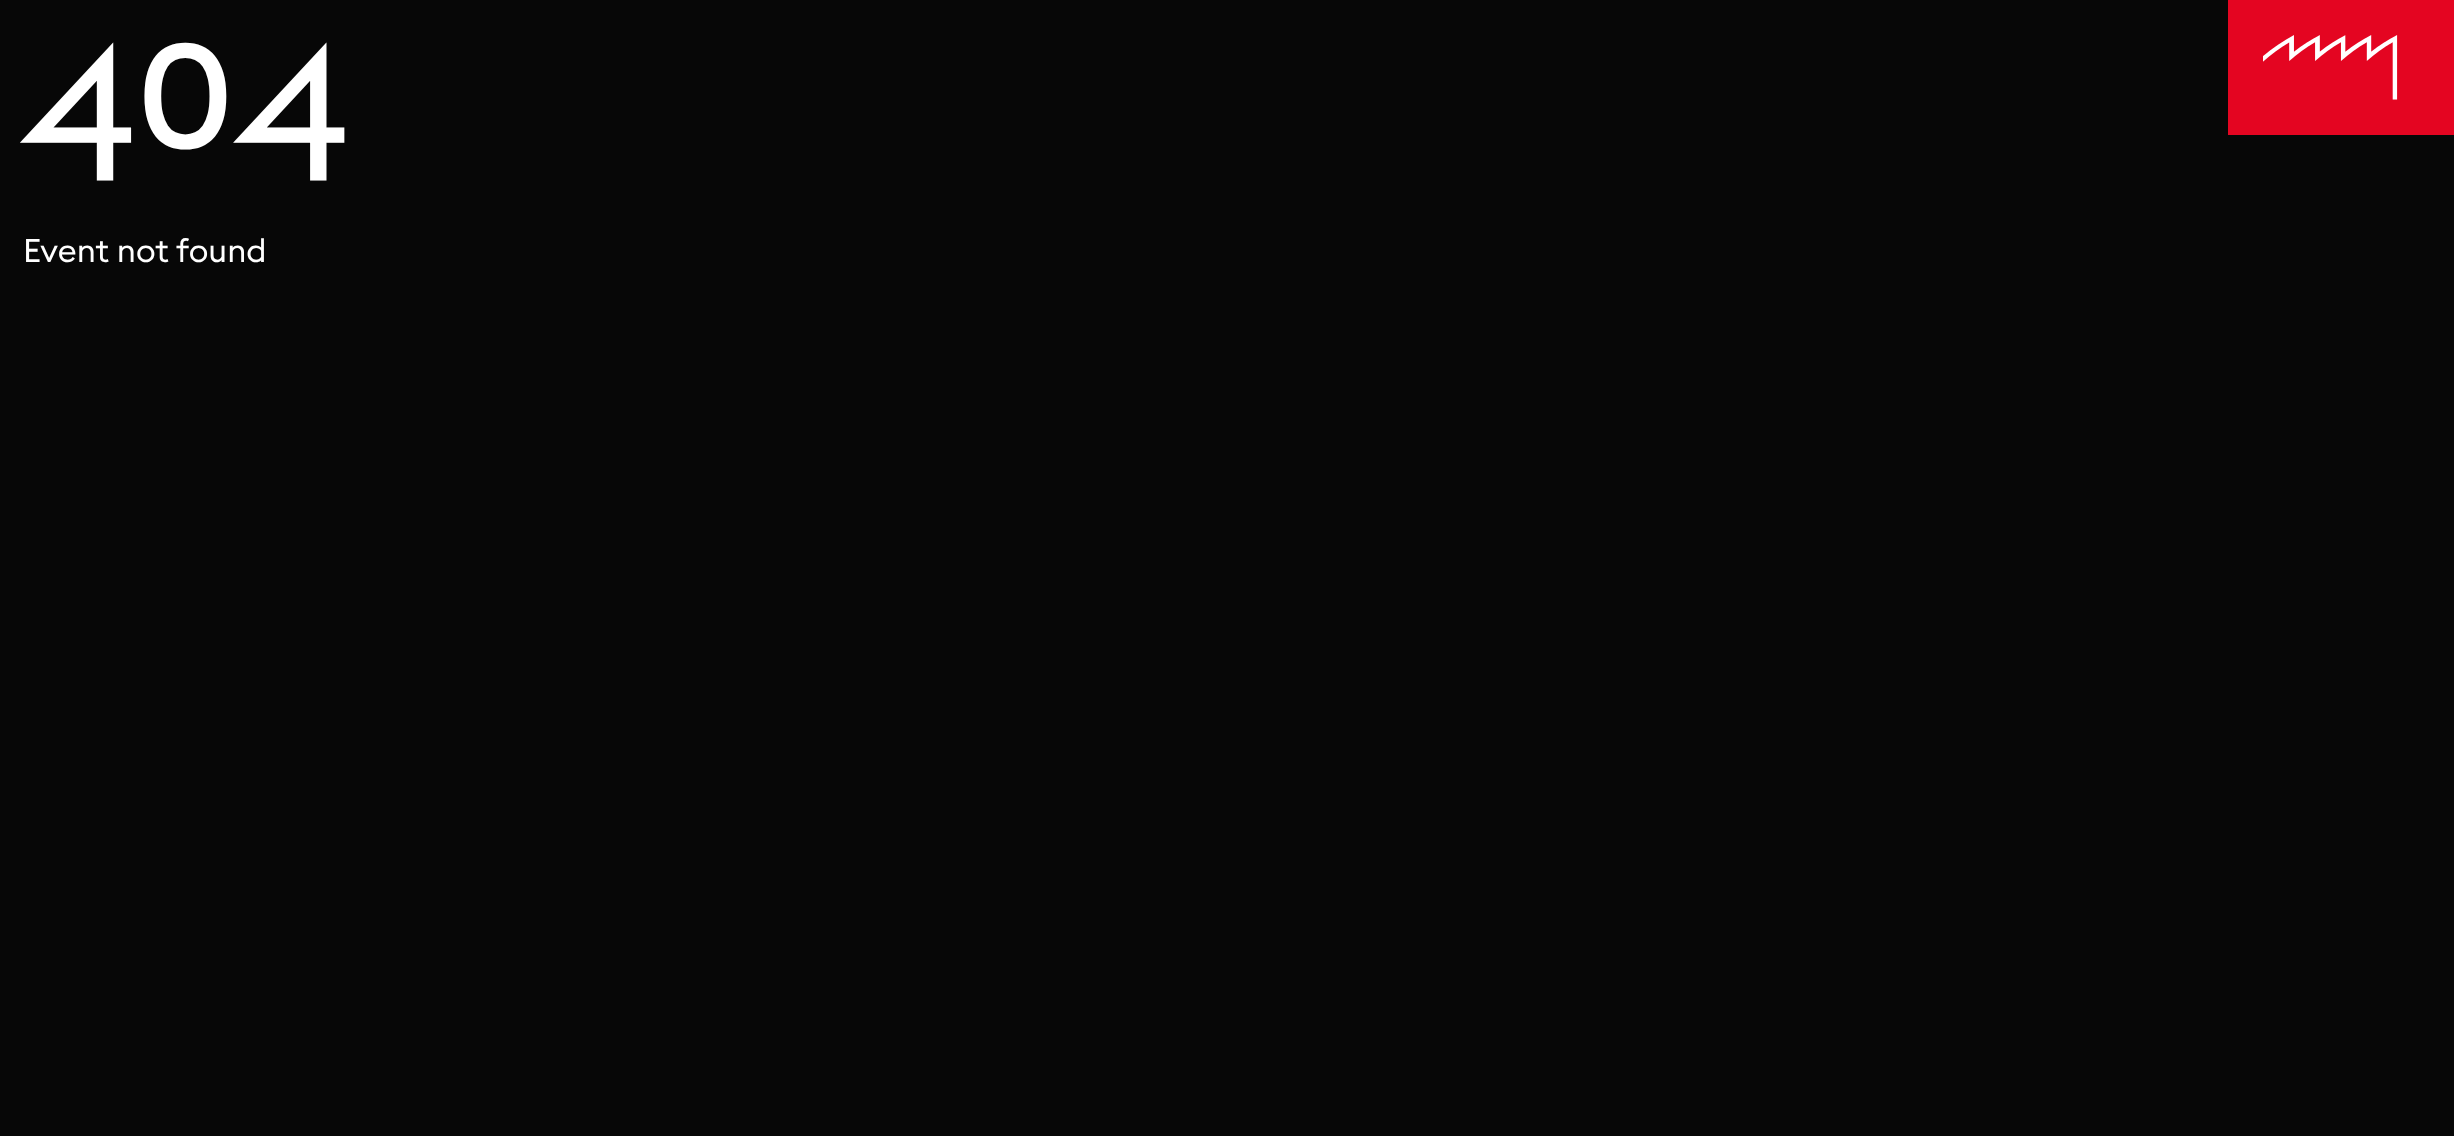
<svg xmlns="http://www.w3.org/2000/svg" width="2454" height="1136">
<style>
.a{font:192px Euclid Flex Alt;letter-spacing:-2px;fill:#fff}
.b{font:32.5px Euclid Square;fill:#fff}
</style>
<rect width="100%" height="100%" fill="#070707"/>
<path fill="#e40521" d="M2228 0h226v135H2228z"/>
<image href="1.png" x="2263" y="35" width="135" height="65"/>
<text class="a" x="17" y="148">404</text>
<text class="b" x="23" y="262">Event not found</text>
</svg>
